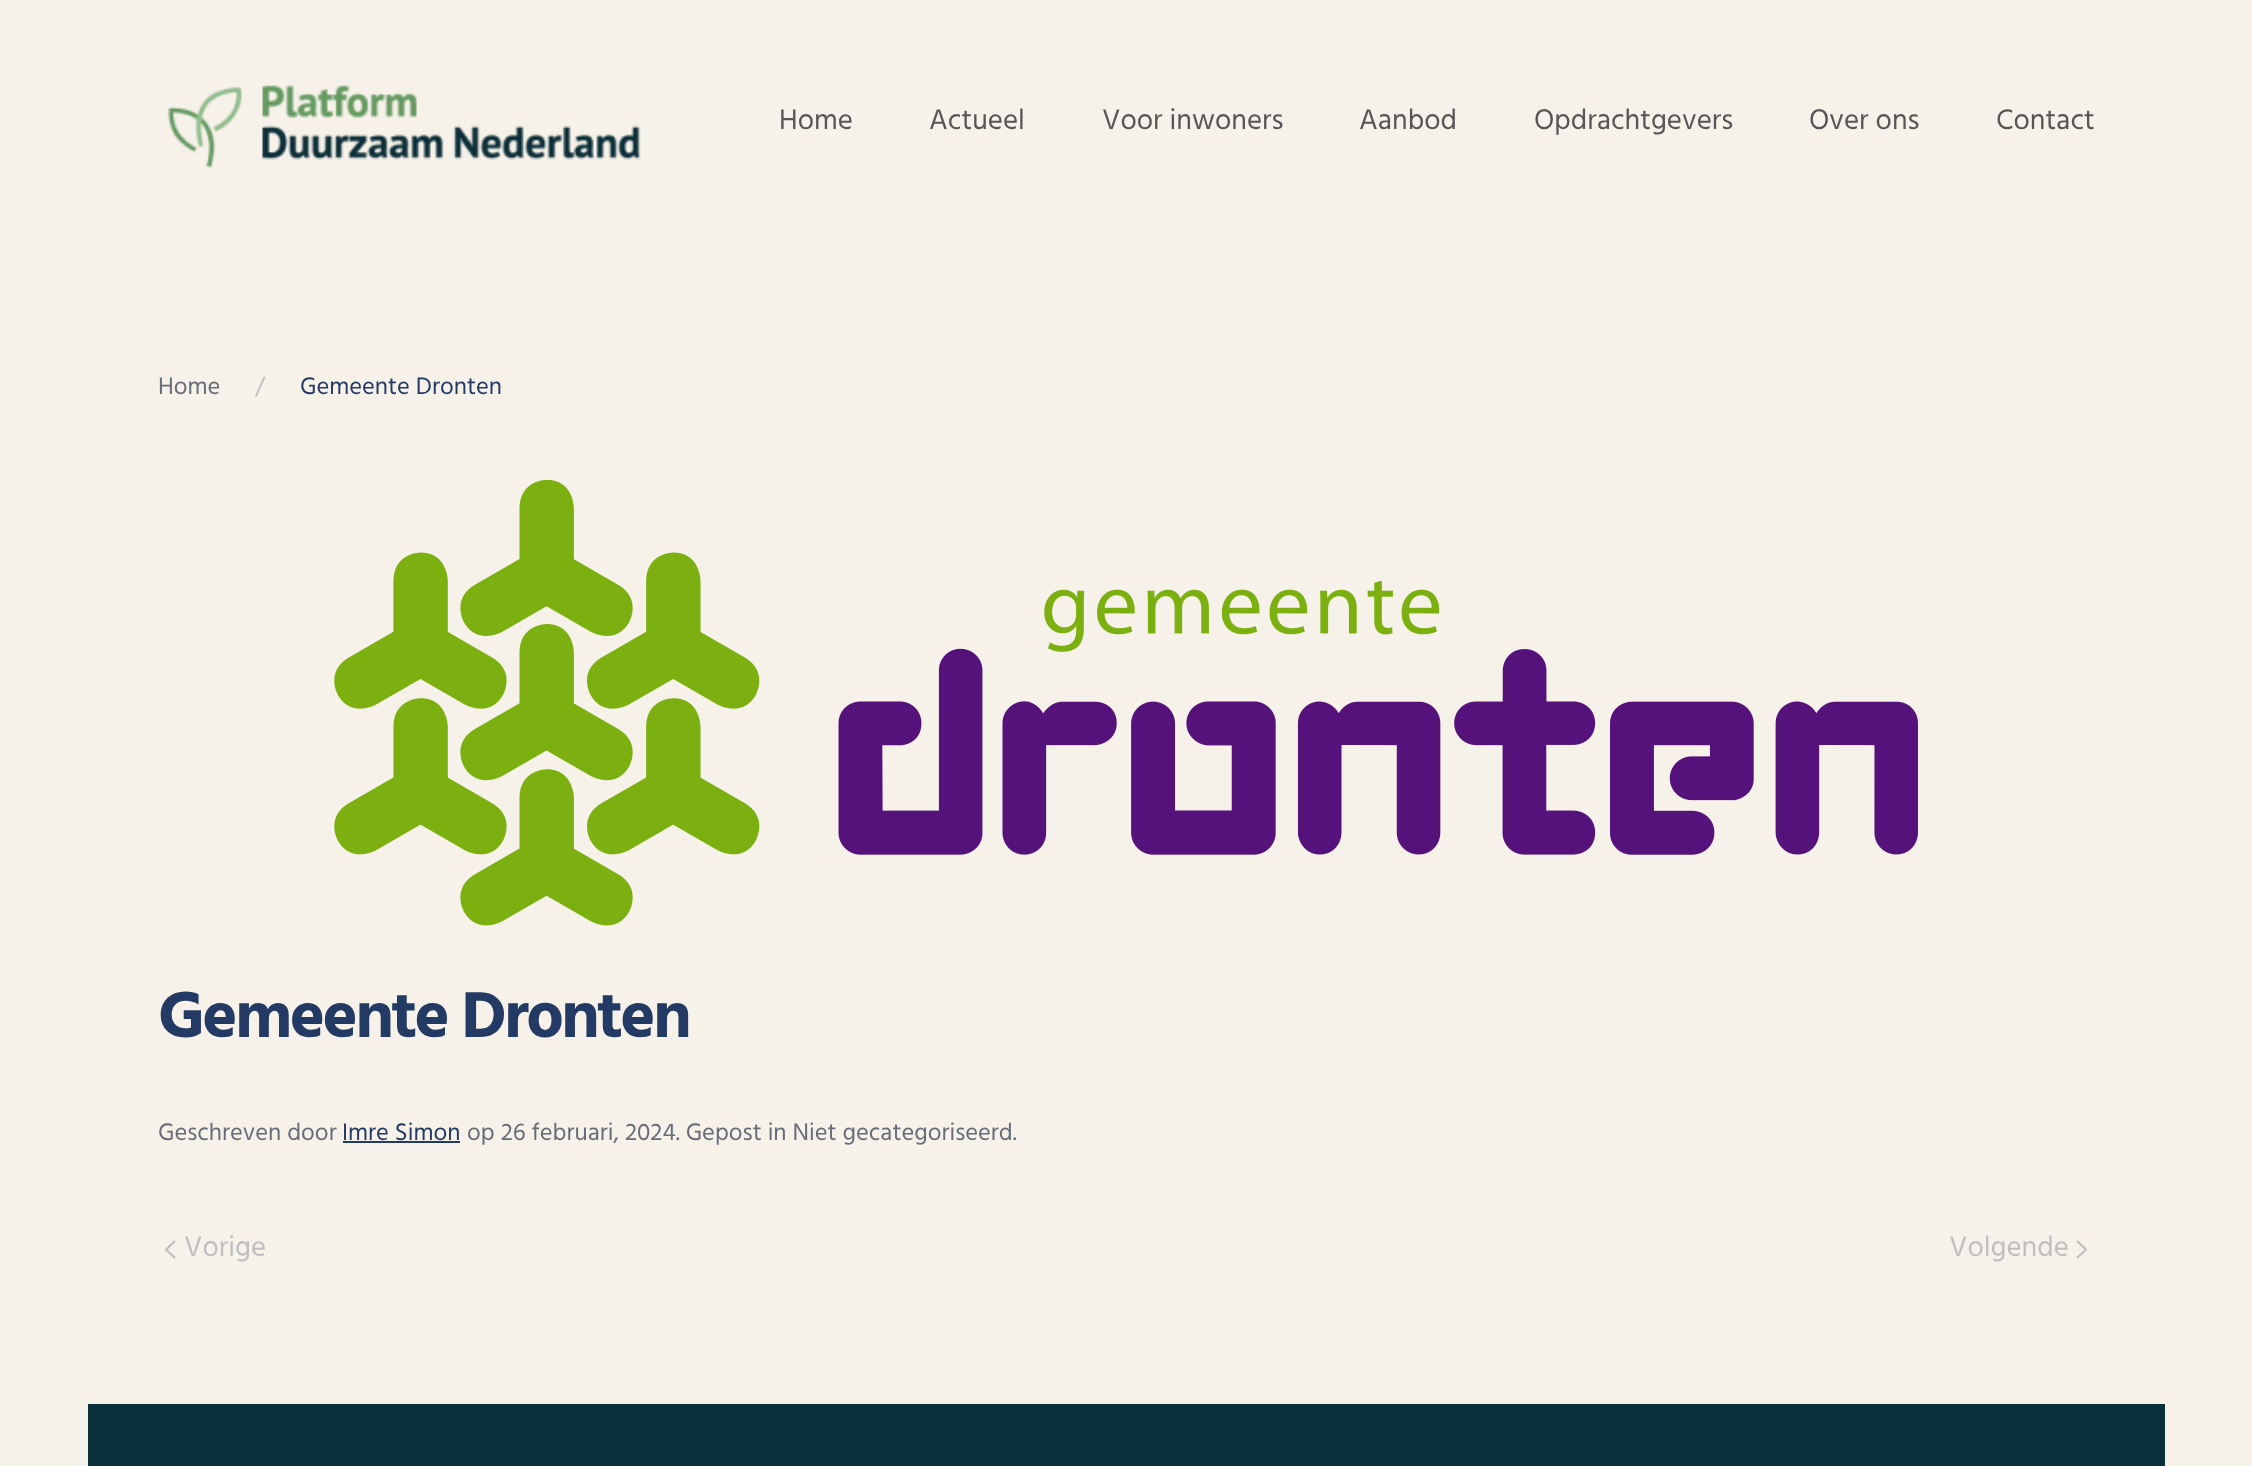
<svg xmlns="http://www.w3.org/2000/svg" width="2252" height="1466">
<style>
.a{font:29px Hind;fill:#575656}
.b{font:24.5px Hind;fill:#666c78}
.c{font:24.5px Hind;fill:#bfbfbf}
.d{font:24.5px Hind;fill:#233a64}
.e{font:bold 66.5px Hind;letter-spacing:-2.6px;fill:#233a64}
.f{font:29px Hind;fill:#bfbfbf}
</style>
<rect width="100%" height="100%" fill="#f6f2e9"/>
<image href="1.png" x="167" y="85" width="474" height="84"/>
<image href="2.png" x="334" y="480" width="1584" height="446"/>
<path fill="#233a64" d="M343 1141h117v2H343z"/>
<path fill="none" stroke="#bfbfbf" stroke-width="2.1" d="M175 1241l-9 8.5l9 8.5"/>
<path fill="none" stroke="#bfbfbf" stroke-width="2.1" d="M2077 1241l9 8.5l-9 8.5"/>
<path fill="#082f3a" d="M88 1404h2077v62H88z"/>
<text class="a" x="779" y="129">Home</text>
<text class="a" x="929" y="129">Actueel</text>
<text class="a" x="1102" y="129">Voor inwoners</text>
<text class="a" x="1359" y="129">Aanbod</text>
<text class="a" x="1534" y="129">Opdrachtgevers</text>
<text class="a" x="1809" y="129">Over ons</text>
<text class="a" x="1996" y="129">Contact</text>
<text class="b" x="158" y="394">Home</text>
<text class="c" x="255" y="394">/</text>
<text class="d" x="300" y="394">Gemeente Dronten</text>
<text class="e" x="158" y="1037">Gemeente Dronten</text>
<text class="b" x="158" y="1140">Geschreven door</text>
<text class="d" x="342" y="1140">Imre Simon</text>
<text class="b" x="467" y="1140">op 26 februari, 2024. Gepost in Niet gecategoriseerd.</text>
<text class="f" x="184" y="1256">Vorige</text>
<text class="f" x="1949" y="1256">Volgende</text>
</svg>
